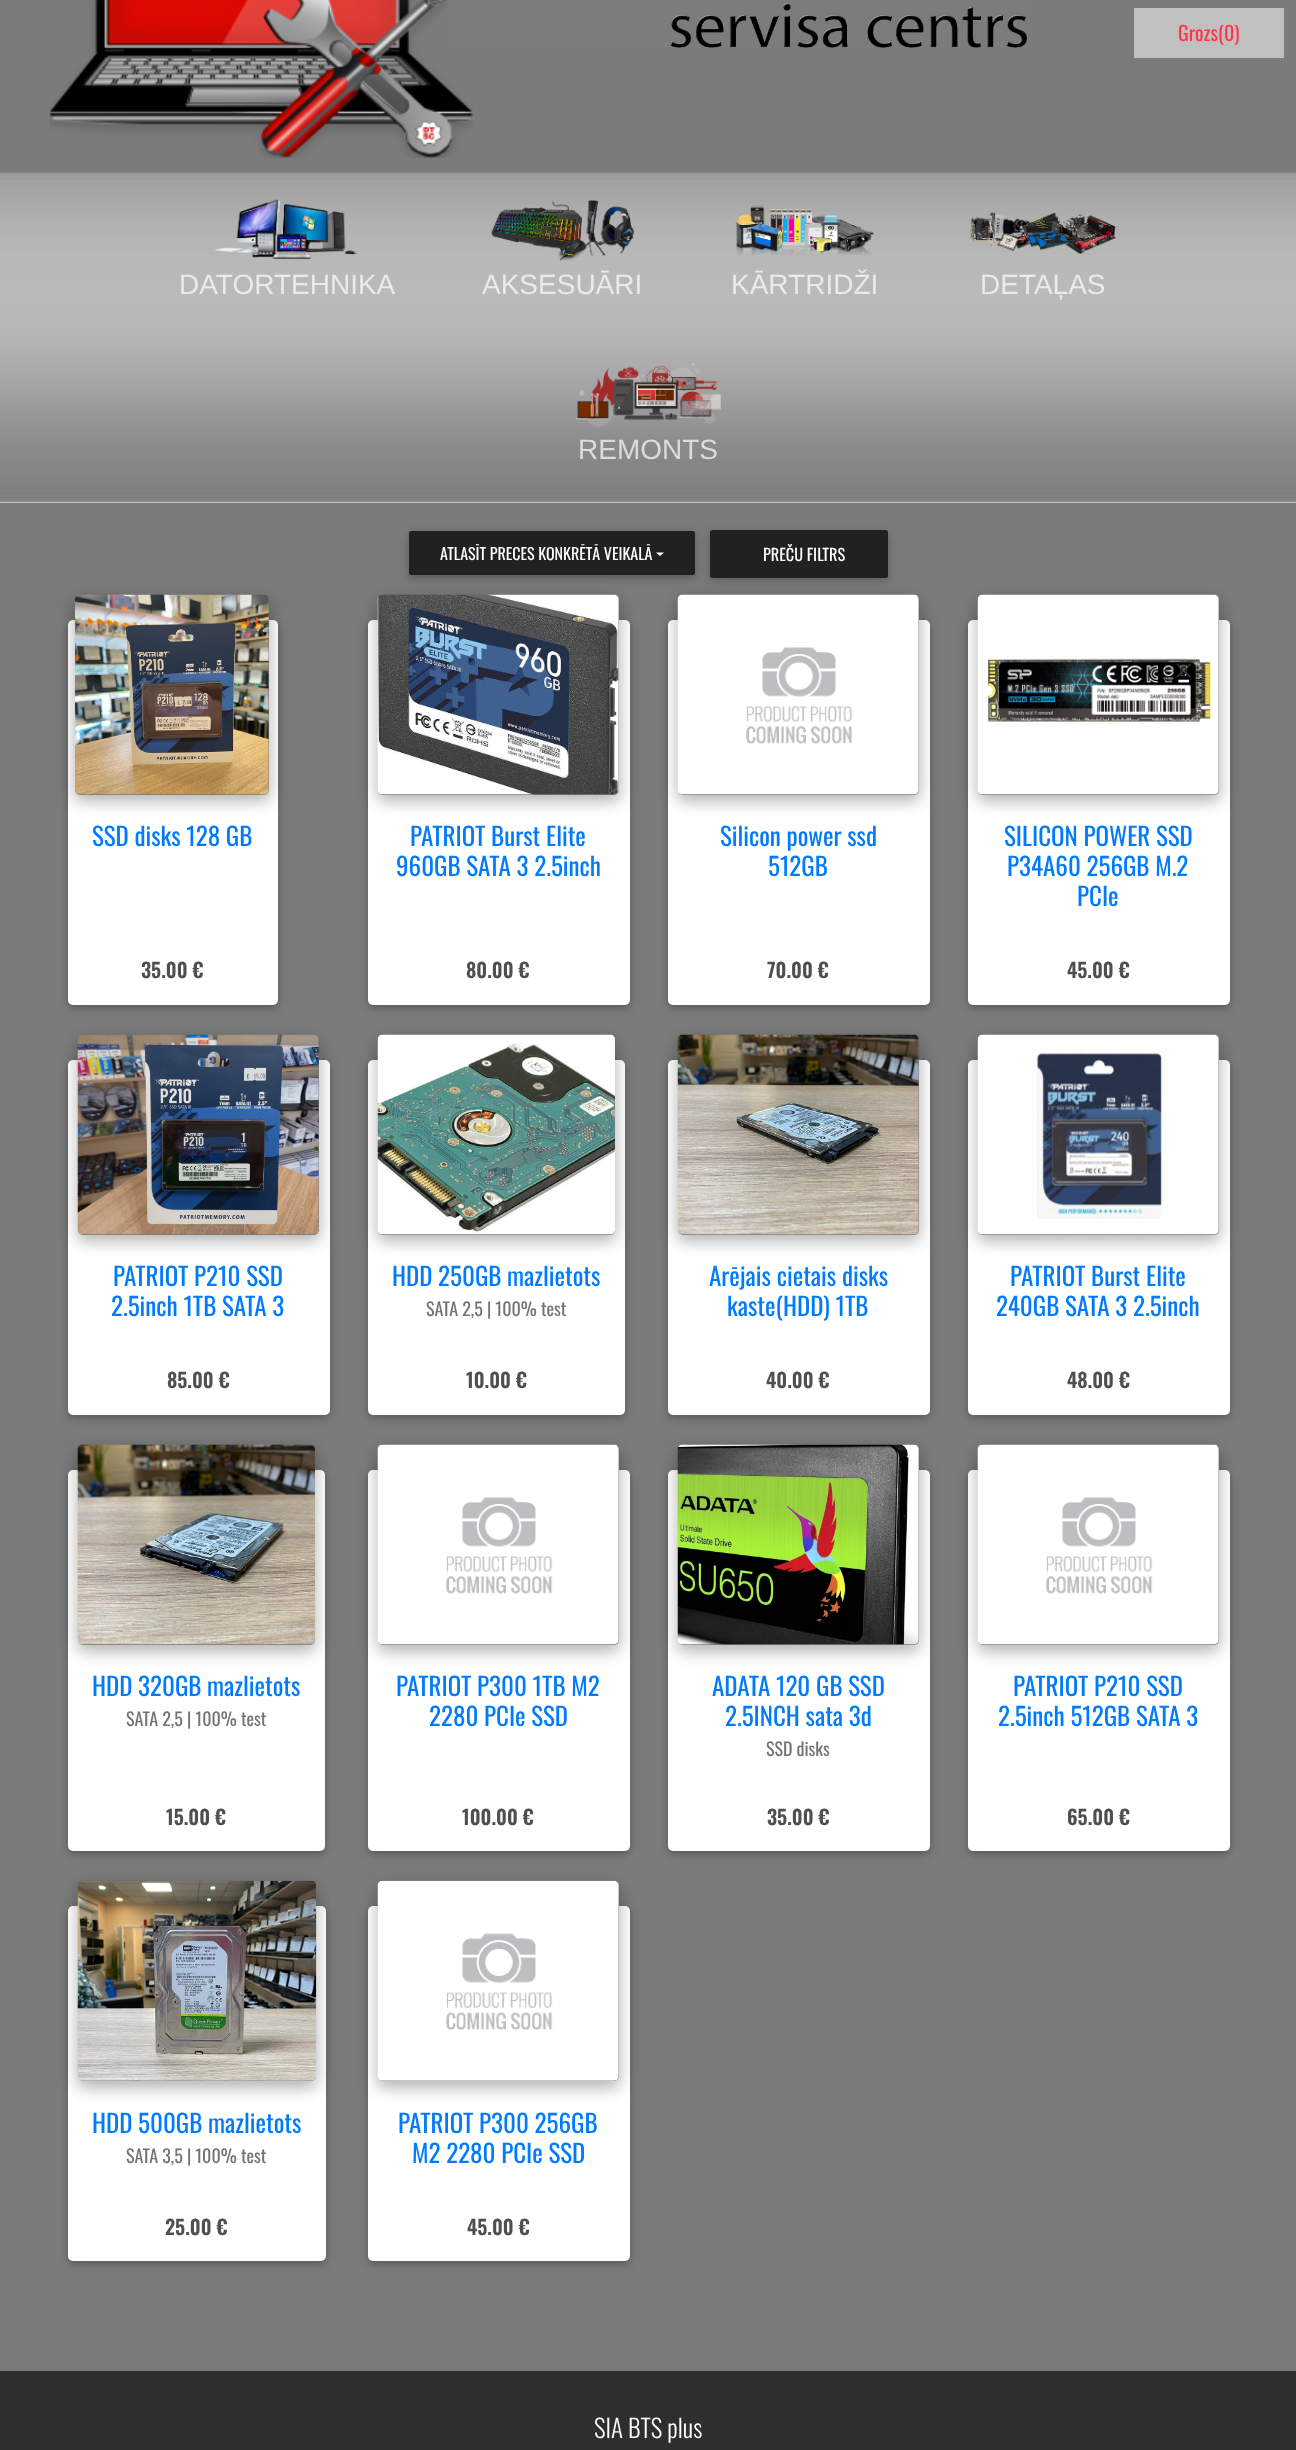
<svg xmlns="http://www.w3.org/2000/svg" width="1296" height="2450">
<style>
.a{font:20px Oswald;fill:#ff3547}
.b{font:28px Liberation Sans;fill:#eaeaea}
.c{font:28px Liberation Sans;fill:#dcdcdc}
.d{font:16px Oswald;fill:#fff}
.e{font:16.25px Oswald;fill:#fff}
.f{font:25px Oswald;fill:#007bff}
.g{font:600 20px Oswald;fill:#4f4f4f}
.h{font:18px Oswald;fill:#747373}
.i{font:300 25px Oswald;fill:#fff}
</style>
<rect width="100%" height="100%" fill="#7b7b7b"/>
<image href="1.png" x="49" y="0" width="424" height="159"/>
<image href="2.png" x="447" y="0" width="580" height="48"/>
<path fill="#c0c0c0" d="M1134 8h150v50H1134z"/>
<path fill="#bdbdbd" d="M0 502h1296v1H0z"/>
<image href="3.png" x="0" y="171" width="1296" height="331"/>
<image href="4.png" x="214" y="199" width="143" height="61"/>
<image href="5.png" x="491" y="199" width="143" height="62"/>
<image href="6.png" x="735" y="205" width="139" height="50"/>
<image href="7.png" x="970" y="211" width="146" height="43"/>
<image href="8.png" x="575" y="363" width="146" height="64"/>
<rect fill="#0000001f" filter="blur(6px)" x="409" y="534" width="286" height="44" rx="2.5"/>
<rect fill="#00000029" filter="blur(3px)" x="409" y="534" width="286" height="44" rx="2.5"/>
<rect fill="#212121" x="409" y="531" width="286" height="44" rx="2.5"/>
<path fill="#fff" d="M656 552.5h8l-4 3.5z"/>
<rect fill="#0000001f" filter="blur(6px)" x="710" y="533" width="178" height="47" rx="2.5"/>
<rect fill="#00000029" filter="blur(3px)" x="710" y="533" width="178" height="47" rx="2.5"/>
<rect fill="#212121" x="710" y="530" width="178" height="48" rx="2.5"/>
<rect fill="#0000001f" filter="blur(6px)" x="68" y="623" width="210" height="385" rx="5"/>
<rect fill="#00000029" filter="blur(3px)" x="68" y="623" width="210" height="385" rx="5"/>
<rect fill="#fff" x="68" y="620" width="210" height="385" rx="5"/>
<rect fill="#00000026" filter="blur(9.5px)" x="75" y="600" width="194" height="200" rx="5"/>
<rect fill="#0000002e" filter="blur(7px)" x="75" y="601" width="194" height="200" rx="5"/>
<rect fill="#7b7b7b" x="75" y="595" width="194" height="200" rx="5"/>
<image href="9.png" x="75" y="594" width="194" height="201"/>
<rect fill="#0000001f" filter="blur(6px)" x="368" y="623" width="262" height="385" rx="5"/>
<rect fill="#00000029" filter="blur(3px)" x="368" y="623" width="262" height="385" rx="5"/>
<rect fill="#fff" x="368" y="620" width="262" height="385" rx="5"/>
<rect fill="#00000026" filter="blur(9.5px)" x="378" y="600" width="241" height="200" rx="5"/>
<rect fill="#0000002e" filter="blur(7px)" x="378" y="601" width="241" height="200" rx="5"/>
<rect fill="#7b7b7b" x="378" y="595" width="241" height="200" rx="5"/>
<image href="10.png" x="377" y="594" width="242" height="201"/>
<rect fill="#0000001f" filter="blur(6px)" x="668" y="623" width="262" height="385" rx="5"/>
<rect fill="#00000029" filter="blur(3px)" x="668" y="623" width="262" height="385" rx="5"/>
<rect fill="#fff" x="668" y="620" width="262" height="385" rx="5"/>
<rect fill="#00000026" filter="blur(9.5px)" x="678" y="600" width="241" height="200" rx="5"/>
<rect fill="#0000002e" filter="blur(7px)" x="678" y="601" width="241" height="200" rx="5"/>
<rect fill="#7b7b7b" x="678" y="595" width="241" height="200" rx="5"/>
<image href="11.png" x="677" y="594" width="242" height="201"/>
<rect fill="#0000001f" filter="blur(6px)" x="968" y="623" width="262" height="385" rx="5"/>
<rect fill="#00000029" filter="blur(3px)" x="968" y="623" width="262" height="385" rx="5"/>
<rect fill="#fff" x="968" y="620" width="262" height="385" rx="5"/>
<rect fill="#00000026" filter="blur(9.5px)" x="978" y="600" width="241" height="200" rx="5"/>
<rect fill="#0000002e" filter="blur(7px)" x="978" y="601" width="241" height="200" rx="5"/>
<rect fill="#7b7b7b" x="978" y="595" width="241" height="200" rx="5"/>
<image href="12.png" x="977" y="594" width="242" height="201"/>
<rect fill="#0000001f" filter="blur(6px)" x="68" y="1063" width="262" height="355" rx="5"/>
<rect fill="#00000029" filter="blur(3px)" x="68" y="1063" width="262" height="355" rx="5"/>
<rect fill="#fff" x="68" y="1060" width="262" height="355" rx="5"/>
<rect fill="#00000026" filter="blur(9.5px)" x="78" y="1040" width="241" height="200" rx="5"/>
<rect fill="#0000002e" filter="blur(7px)" x="78" y="1041" width="241" height="200" rx="5"/>
<rect fill="#7b7b7b" x="78" y="1035" width="241" height="200" rx="5"/>
<image href="13.png" x="77" y="1034" width="242" height="201"/>
<rect fill="#0000001f" filter="blur(6px)" x="368" y="1063" width="257" height="355" rx="5"/>
<rect fill="#00000029" filter="blur(3px)" x="368" y="1063" width="257" height="355" rx="5"/>
<rect fill="#fff" x="368" y="1060" width="257" height="355" rx="5"/>
<rect fill="#00000026" filter="blur(9.5px)" x="378" y="1040" width="237" height="200" rx="5"/>
<rect fill="#0000002e" filter="blur(7px)" x="378" y="1041" width="237" height="200" rx="5"/>
<rect fill="#7b7b7b" x="378" y="1035" width="237" height="200" rx="5"/>
<image href="14.png" x="377" y="1034" width="238" height="201"/>
<rect fill="#0000001f" filter="blur(6px)" x="668" y="1063" width="262" height="355" rx="5"/>
<rect fill="#00000029" filter="blur(3px)" x="668" y="1063" width="262" height="355" rx="5"/>
<rect fill="#fff" x="668" y="1060" width="262" height="355" rx="5"/>
<rect fill="#00000026" filter="blur(9.5px)" x="678" y="1040" width="241" height="200" rx="5"/>
<rect fill="#0000002e" filter="blur(7px)" x="678" y="1041" width="241" height="200" rx="5"/>
<rect fill="#7b7b7b" x="678" y="1035" width="241" height="200" rx="5"/>
<image href="15.png" x="677" y="1034" width="242" height="201"/>
<rect fill="#0000001f" filter="blur(6px)" x="968" y="1063" width="262" height="355" rx="5"/>
<rect fill="#00000029" filter="blur(3px)" x="968" y="1063" width="262" height="355" rx="5"/>
<rect fill="#fff" x="968" y="1060" width="262" height="355" rx="5"/>
<rect fill="#00000026" filter="blur(9.5px)" x="978" y="1040" width="241" height="200" rx="5"/>
<rect fill="#0000002e" filter="blur(7px)" x="978" y="1041" width="241" height="200" rx="5"/>
<rect fill="#7b7b7b" x="978" y="1035" width="241" height="200" rx="5"/>
<image href="16.png" x="977" y="1034" width="242" height="201"/>
<rect fill="#0000001f" filter="blur(6px)" x="68" y="1473" width="257" height="381" rx="5"/>
<rect fill="#00000029" filter="blur(3px)" x="68" y="1473" width="257" height="381" rx="5"/>
<rect fill="#fff" x="68" y="1470" width="257" height="381" rx="5"/>
<rect fill="#00000026" filter="blur(9.5px)" x="78" y="1450" width="237" height="200" rx="5"/>
<rect fill="#0000002e" filter="blur(7px)" x="78" y="1451" width="237" height="200" rx="5"/>
<rect fill="#7b7b7b" x="78" y="1445" width="237" height="200" rx="5"/>
<image href="17.png" x="77" y="1444" width="238" height="201"/>
<rect fill="#0000001f" filter="blur(6px)" x="368" y="1473" width="262" height="381" rx="5"/>
<rect fill="#00000029" filter="blur(3px)" x="368" y="1473" width="262" height="381" rx="5"/>
<rect fill="#fff" x="368" y="1470" width="262" height="381" rx="5"/>
<rect fill="#00000026" filter="blur(9.5px)" x="378" y="1450" width="241" height="200" rx="5"/>
<rect fill="#0000002e" filter="blur(7px)" x="378" y="1451" width="241" height="200" rx="5"/>
<rect fill="#7b7b7b" x="378" y="1445" width="241" height="200" rx="5"/>
<image href="18.png" x="377" y="1444" width="242" height="201"/>
<rect fill="#0000001f" filter="blur(6px)" x="668" y="1473" width="262" height="381" rx="5"/>
<rect fill="#00000029" filter="blur(3px)" x="668" y="1473" width="262" height="381" rx="5"/>
<rect fill="#fff" x="668" y="1470" width="262" height="381" rx="5"/>
<rect fill="#00000026" filter="blur(9.5px)" x="678" y="1450" width="241" height="200" rx="5"/>
<rect fill="#0000002e" filter="blur(7px)" x="678" y="1451" width="241" height="200" rx="5"/>
<rect fill="#7b7b7b" x="678" y="1445" width="241" height="200" rx="5"/>
<image href="19.png" x="677" y="1444" width="242" height="201"/>
<rect fill="#0000001f" filter="blur(6px)" x="968" y="1473" width="262" height="381" rx="5"/>
<rect fill="#00000029" filter="blur(3px)" x="968" y="1473" width="262" height="381" rx="5"/>
<rect fill="#fff" x="968" y="1470" width="262" height="381" rx="5"/>
<rect fill="#00000026" filter="blur(9.5px)" x="978" y="1450" width="241" height="200" rx="5"/>
<rect fill="#0000002e" filter="blur(7px)" x="978" y="1451" width="241" height="200" rx="5"/>
<rect fill="#7b7b7b" x="978" y="1445" width="241" height="200" rx="5"/>
<image href="20.png" x="977" y="1444" width="242" height="201"/>
<rect fill="#0000001f" filter="blur(6px)" x="68" y="1909" width="258" height="355" rx="5"/>
<rect fill="#00000029" filter="blur(3px)" x="68" y="1909" width="258" height="355" rx="5"/>
<rect fill="#fff" x="68" y="1906" width="258" height="355" rx="5"/>
<rect fill="#00000026" filter="blur(9.5px)" x="78" y="1886" width="238" height="200" rx="5"/>
<rect fill="#0000002e" filter="blur(7px)" x="78" y="1888" width="238" height="200" rx="5"/>
<rect fill="#7b7b7b" x="78" y="1881" width="238" height="200" rx="5"/>
<image href="21.png" x="77" y="1880" width="240" height="201"/>
<rect fill="#0000001f" filter="blur(6px)" x="368" y="1909" width="262" height="355" rx="5"/>
<rect fill="#00000029" filter="blur(3px)" x="368" y="1909" width="262" height="355" rx="5"/>
<rect fill="#fff" x="368" y="1906" width="262" height="355" rx="5"/>
<rect fill="#00000026" filter="blur(9.5px)" x="378" y="1886" width="241" height="200" rx="5"/>
<rect fill="#0000002e" filter="blur(7px)" x="378" y="1888" width="241" height="200" rx="5"/>
<rect fill="#7b7b7b" x="378" y="1881" width="241" height="200" rx="5"/>
<image href="22.png" x="377" y="1880" width="242" height="201"/>
<path fill="#2e2e2e" d="M0 2371h1296v79H0z"/>
<text class="a" x="1178" y="41">Grozs(0)</text>
<text class="b" x="179" y="294">DATORTEHNIKA</text>
<text class="b" x="482" y="294">AKSESUĀRI</text>
<text class="b" x="731" y="294">KĀRTRIDŽI</text>
<text class="b" x="980" y="294">DETAĻAS</text>
<text class="c" x="578" y="459">REMONTS</text>
<text class="d" x="440" y="560">ATLASĪT PRECES KONKRĒTĀ VEIKALĀ</text>
<text class="e" x="763" y="561">PREČU FILTRS</text>
<text class="f" x="92" y="846">SSD disks 128 GB</text>
<text class="g" x="141" y="978">35.00 €</text>
<text class="f" x="410" y="846">PATRIOT Burst Elite</text>
<text class="f" x="396" y="876">960GB SATA 3 2.5inch</text>
<text class="g" x="466" y="978">80.00 €</text>
<text class="f" x="720" y="846">Silicon power ssd</text>
<text class="f" x="768" y="876">512GB</text>
<text class="g" x="767" y="978">70.00 €</text>
<text class="f" x="1004" y="846">SILICON POWER SSD</text>
<text class="f" x="1007" y="876">P34A60 256GB M.2</text>
<text class="f" x="1077" y="906">PCIe</text>
<text class="g" x="1067" y="978">45.00 €</text>
<text class="f" x="113" y="1286">PATRIOT P210 SSD</text>
<text class="f" x="111" y="1316">2.5inch 1TB SATA 3</text>
<text class="g" x="167" y="1388">85.00 €</text>
<text class="f" x="392" y="1286">HDD 250GB mazlietots</text>
<text class="h" x="426" y="1316">SATA 2,5 | 100% test</text>
<text class="g" x="466" y="1388">10.00 €</text>
<text class="f" x="709" y="1286">Arējais cietais disks</text>
<text class="f" x="727" y="1316">kaste(HDD) 1TB</text>
<text class="g" x="766" y="1388">40.00 €</text>
<text class="f" x="1010" y="1286">PATRIOT Burst Elite</text>
<text class="f" x="996" y="1316">240GB SATA 3 2.5inch</text>
<text class="g" x="1067" y="1388">48.00 €</text>
<text class="f" x="92" y="1696">HDD 320GB mazlietots</text>
<text class="h" x="126" y="1726">SATA 2,5 | 100% test</text>
<text class="g" x="166" y="1825">15.00 €</text>
<text class="f" x="396" y="1696">PATRIOT P300 1TB M2</text>
<text class="f" x="429" y="1726">2280 PCIe SSD</text>
<text class="g" x="462" y="1825">100.00 €</text>
<text class="f" x="712" y="1696">ADATA 120 GB SSD</text>
<text class="f" x="725" y="1726">2.5INCH sata 3d</text>
<text class="h" x="766" y="1756">SSD disks</text>
<text class="g" x="767" y="1825">35.00 €</text>
<text class="f" x="1013" y="1696">PATRIOT P210 SSD</text>
<text class="f" x="998" y="1726">2.5inch 512GB SATA 3</text>
<text class="g" x="1067" y="1825">65.00 €</text>
<text class="f" x="92" y="2133">HDD 500GB mazlietots</text>
<text class="h" x="126" y="2163">SATA 3,5 | 100% test</text>
<text class="g" x="165" y="2235">25.00 €</text>
<text class="f" x="398" y="2133">PATRIOT P300 256GB</text>
<text class="f" x="412" y="2163">M2 2280 PCIe SSD</text>
<text class="g" x="467" y="2235">45.00 €</text>
<text class="i" x="594" y="2438">SIA BTS plus</text>
</svg>
